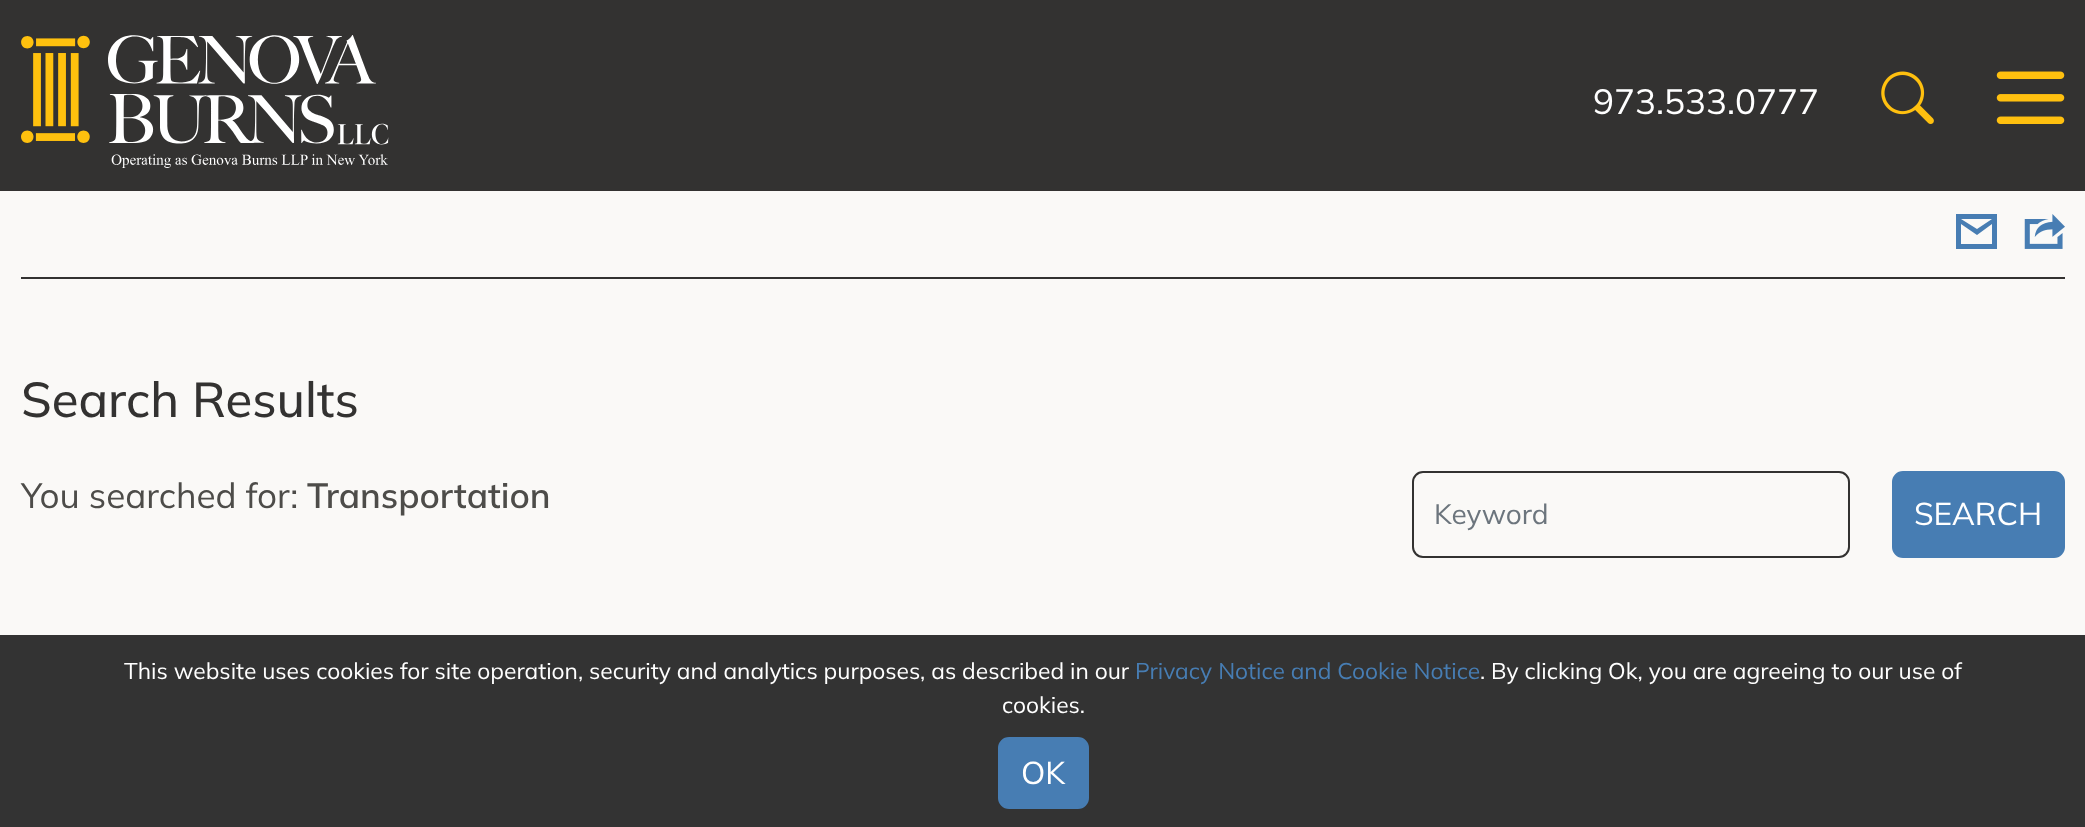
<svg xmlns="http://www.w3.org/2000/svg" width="2085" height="827">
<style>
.a{font:35px Mulish;fill:#fff}
.b{font:500 49px Mulish;fill:#333231}
.c{font:35px Mulish;fill:#4d4c49}
.d{font:600 35px Mulish;fill:#4d4c49}
.e{font:28px Mulish;fill:#6c757d}
.f{font:31.5px Mulish;fill:#fff}
.g{font:22.75px Mulish;fill:#fff}
.h{font:22.75px Mulish;fill:#477db3}
</style>
<rect width="100%" height="100%" fill="#faf9f7"/>
<path fill="#333231" d="M0 0h2085v191H0z"/>
<image href="1.png" x="21" y="35" width="368" height="133"/>
<image href="2.png" x="1881" y="71" width="53" height="53"/>
<image href="3.png" x="1996" y="71" width="69" height="53"/>
<path fill="#333231" d="M21 277h2044v2H21z"/>
<path fill="#477db3" d="M1956 214v35h41v-35zm36 30h-31v-20l16 11l15-11zm-15-15l-16-10h31z"/>
<image href="4.png" x="2024" y="214" width="41" height="35"/>
<rect fill="none" stroke="#333231" stroke-width="2" x="1413" y="472" width="436" height="85" rx="10"/>
<rect fill="#477db3" stroke="#477db3" stroke-width="2" x="1893" y="472" width="171" height="85" rx="10"/>
<path fill="#333" d="M0 635h2085v192H0z"/>
<rect fill="#477db3" stroke="#477db3" stroke-width="2" x="999" y="738" width="89" height="70" rx="10"/>
<text class="a" x="1593" y="114">973.533.0777</text>
<text class="b" x="21" y="417">Search Results</text>
<text class="c" x="21" y="508">You searched for:</text>
<text class="d" x="307" y="508">Transportation</text>
<text class="e" x="1434" y="524">Keyword</text>
<text class="f" x="1914" y="525">SEARCH</text>
<text class="g" x="124" y="679">This website uses cookies for site operation, security and analytics purposes, as described in our</text>
<text class="h" x="1135" y="679">Privacy Notice and Cookie Notice</text>
<text class="g" x="1480" y="679">. By clicking Ok, you are agreeing to our use of</text>
<text class="g" x="1002" y="713">cookies.</text>
<text class="f" x="1021" y="784">OK</text>
</svg>
